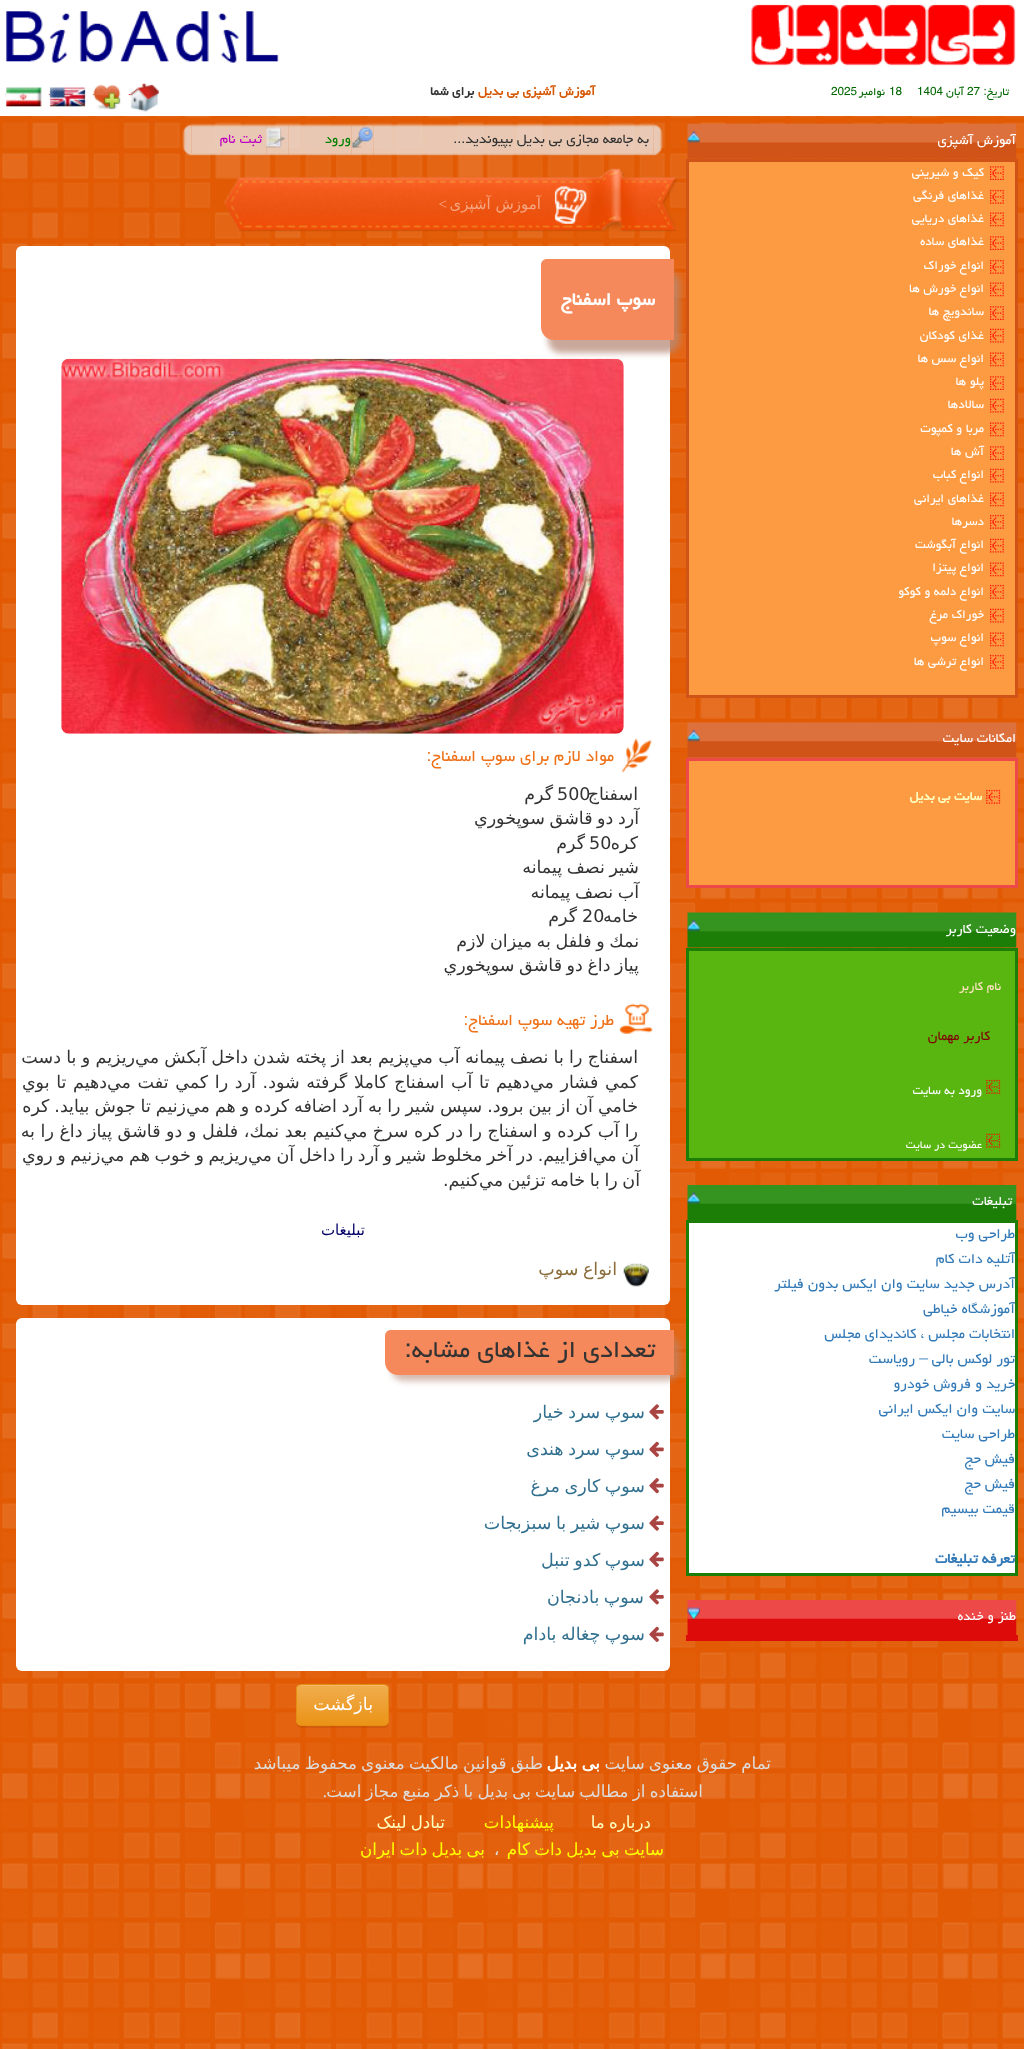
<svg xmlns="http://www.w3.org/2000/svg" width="1024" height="2049">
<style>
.a{font:13.5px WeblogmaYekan;direction:rtl;fill:#060}
.b{font:13.5px WeblogmaYekan;fill:#060}
.c{font:bold 15px WeblogmaYekan;direction:rtl;fill:#d65703}
.d{font:bold 15px WeblogmaYekan;direction:rtl;fill:#333}
.e{font:11px WeblogmaYekan;fill:#f00}
.f{font:11px WeblogmaYekan;fill:#de6a2d}
.g{font:11px WeblogmaYekan;fill:#d04564}
.h{font:11px WeblogmaYekan;fill:#c3dcb5}
.i{font:16.25px WeblogmaYekan;direction:rtl;fill:#fff}
.j{font:15px WeblogmaYekan;direction:rtl;fill:#fff}
.k{font:bold 15px WeblogmaYekan;direction:rtl;fill:#ffffc0}
.l{font:15px WeblogmaYekan;direction:rtl;fill:#ffe4c4}
.m{font:16.7px WeblogmaYekan;direction:rtl;fill:#800000}
.n{font:13.5px WeblogmaYekan;direction:rtl;fill:#fff}
.o{font:17.5px WeblogmaYekan;direction:rtl;fill:#337ab7}
.p{font:17.5px Liberation Serif;direction:rtl;fill:#337ab7}
.q{font:bold 17.5px WeblogmaYekan;direction:rtl;fill:#337ab7}
.r{font:16.7px WeblogmaYekan;direction:rtl;fill:#333}
.s{font:16.7px WeblogmaYekan;direction:rtl;fill:#008000}
.t{font:16.7px WeblogmaYekan;direction:rtl;fill:#c000c0}
.u{font:15px DejaVu Sans;direction:rtl;fill:#f6a582}
.v{font:15px Liberation Serif;direction:rtl;fill:#f6a582}
.w{font:bold 22.5px WeblogmaYekan;direction:rtl;fill:#fff}
.x{font:20px WeblogmaYekan;direction:rtl;fill:#ef721a}
.y{font:17.5px DejaVu Sans;fill:#333}
.z{font:17.5px DejaVu Sans;direction:rtl;fill:#333}
.a1{font:15px DejaVu Sans;direction:rtl;fill:#006}
.b1{font:17.5px DejaVu Sans;direction:rtl;fill:#8a6d3b}
.c1{font:30px WeblogmaYekan;direction:rtl;fill:#333}
.d1{font:17.5px DejaVu Sans;direction:rtl;fill:#31708f}
.e1{font:17.5px DejaVu Sans;direction:rtl;fill:#fff}
.f1{font:bold 16.7px DejaVu Sans;direction:rtl;fill:#fff}
.g1{font:16.7px DejaVu Sans;direction:rtl;fill:#ddd}
.h1{font:16.7px Liberation Serif;direction:rtl;fill:#ddd}
.i1{font:16.7px DejaVu Sans;direction:rtl;fill:#ffffc0}
.j1{font:16.7px DejaVu Sans;direction:rtl;fill:#ff0}
.k1{font:16.7px DejaVu Sans;fill:#ddd}
</style>
<defs>
<clipPath id="clip1"><rect x="296" y="1684" width="93" height="42" rx="5"/></clipPath>
<linearGradient id="g1" gradientUnits="userSpaceOnUse" x1="343" y1="1685" x2="343" y2="1725"><stop offset="0" stop-color="#f0ad4e"/><stop offset="1" stop-color="#eb9316"/></linearGradient>
</defs>
<rect width="100%" height="100%" fill="#fff"/>
<image href="1.png" x="0" y="116" width="1024" height="1933"/>
<image href="2.png" x="751" y="4" width="265" height="62"/>
<image href="3.png" x="6" y="11" width="273" height="52"/>
<image href="4.png" x="129" y="83" width="30" height="29"/>
<image href="5.png" x="93" y="84" width="28" height="26"/>
<image href="6.png" x="49" y="87" width="37" height="20"/>
<image href="7.png" x="6" y="87" width="36" height="20"/>
<image href="8.png" x="687" y="123" width="330" height="36"/>
<image href="9.png" x="687" y="131" width="13" height="12"/>
<path fill="#fd9b42" d="M689 162h326v533H689z"/>
<path fill="#d05317" d="M686 159h332v3H686z"/>
<path fill="#d05317" d="M1015 159h3v539H1015z"/>
<path fill="#d05317" d="M686 695h332v3H686z"/>
<path fill="#d05317" d="M686 159h3v539H686z"/>
<image href="10.png" x="990" y="166" width="14" height="14"/>
<image href="11.png" x="990" y="189" width="14" height="15"/>
<image href="12.png" x="990" y="212" width="14" height="15"/>
<image href="10.png" x="990" y="236" width="14" height="14"/>
<image href="11.png" x="990" y="259" width="14" height="15"/>
<image href="12.png" x="990" y="282" width="14" height="15"/>
<image href="10.png" x="990" y="306" width="14" height="14"/>
<image href="13.png" x="990" y="328" width="14" height="15"/>
<image href="12.png" x="990" y="352" width="14" height="15"/>
<image href="10.png" x="990" y="376" width="14" height="14"/>
<image href="13.png" x="990" y="398" width="14" height="15"/>
<image href="12.png" x="990" y="422" width="14" height="15"/>
<image href="10.png" x="990" y="446" width="14" height="14"/>
<image href="13.png" x="990" y="468" width="14" height="15"/>
<image href="12.png" x="990" y="492" width="14" height="15"/>
<image href="11.png" x="990" y="514" width="14" height="15"/>
<image href="13.png" x="990" y="538" width="14" height="15"/>
<image href="12.png" x="990" y="562" width="14" height="15"/>
<image href="14.png" x="990" y="584" width="14" height="15"/>
<image href="13.png" x="990" y="608" width="14" height="15"/>
<image href="12.png" x="990" y="632" width="14" height="15"/>
<image href="11.png" x="990" y="654" width="14" height="15"/>
<path fill="#dd713e" d="M688 757h328v1H688z"/>
<image href="15.png" x="687" y="722" width="330" height="36"/>
<image href="16.png" x="687" y="730" width="13" height="12"/>
<path fill="#fd9b42" d="M689 761h326v124H689z"/>
<path fill="#ec4948" d="M686 758h332v3H686z"/>
<path fill="#ec4948" d="M1015 758h3v130H1015z"/>
<path fill="#ec4948" d="M686 885h332v3H686z"/>
<path fill="#ec4948" d="M686 758h3v130H686z"/>
<image href="17.png" x="986" y="789" width="15" height="15"/>
<image href="18.png" x="687" y="912" width="330" height="36"/>
<image href="19.png" x="687" y="920" width="13" height="12"/>
<path fill="#59b610" d="M689 951h326v207H689z"/>
<path fill="#1d7e07" d="M686 948h332v3H686z"/>
<path fill="#1d7e07" d="M1015 948h3v212H1015z"/>
<path fill="#1d7e07" d="M686 1158h332v3H686z"/>
<path fill="#1d7e07" d="M686 948h3v212H686z"/>
<image href="20.png" x="986" y="1079" width="15" height="15"/>
<image href="21.png" x="986" y="1133" width="15" height="15"/>
<image href="22.png" x="687" y="1185" width="330" height="35"/>
<image href="23.png" x="687" y="1192" width="13" height="12"/>
<path fill="#fff" d="M689 1223h326v350H689z"/>
<path fill="#1d7e07" d="M686 1220h332v3H686z"/>
<path fill="#1d7e07" d="M1015 1220h3v355H1015z"/>
<path fill="#1d7e07" d="M686 1573h332v3H686z"/>
<path fill="#1d7e07" d="M686 1220h3v355H686z"/>
<image href="24.png" x="687" y="1600" width="330" height="35"/>
<image href="25.png" x="687" y="1607" width="13" height="13"/>
<path fill="#dd0c0b" d="M686 1635h332v3H686z"/>
<path fill="#dd0c0b" d="M1015 1635h3v5H1015z"/>
<path fill="#dd0c0b" d="M686 1638h332v3H686z"/>
<image href="26.png" x="653" y="124" width="10" height="32"/>
<image href="27.png" x="373" y="123" width="281" height="33"/>
<image href="28.png" x="351" y="123" width="23" height="33"/>
<image href="29.png" x="352" y="127" width="21" height="21"/>
<image href="30.png" x="288" y="123" width="64" height="33"/>
<image href="31.png" x="266" y="123" width="23" height="33"/>
<image href="33.png" x="191" y="123" width="76" height="33"/>
<image href="32.png" x="266" y="127" width="20" height="21"/>
<image href="34.png" x="182" y="124" width="10" height="32"/>
<image href="35.png" x="223" y="168" width="454" height="64"/>
<rect fill="#fff" x="16" y="246" width="654" height="1059" rx="6"/>
<rect fill="#b78b78bf" filter="blur(3px)" x="548" y="271" width="132" height="82" rx="13"/>
<path fill="#f6895b" d="M547 259h127v81h-120c-7 0-13-6-13-13v-62c0-3.5 2.5-6 6-6z"/>
<image href="36.png" x="61" y="358" width="563" height="376"/>
<image href="37.png" x="621" y="738" width="31" height="35"/>
<image href="38.png" x="619" y="1003" width="34" height="31"/>
<image href="39.png" x="623" y="1262" width="26" height="25"/>
<rect fill="#fff" x="16" y="1318" width="654" height="353" rx="6"/>
<rect fill="#b78b7899" filter="blur(3px)" x="391" y="1336" width="289" height="45" rx="13"/>
<path fill="#f6895b" d="M391 1330h283v45h-276c-7 0-13-6-13-13v-26c0-3.5 2.5-6 6-6z"/>
<image href="40.png" x="649" y="1404" width="15" height="16"/>
<image href="41.png" x="649" y="1441" width="15" height="16"/>
<image href="42.png" x="649" y="1478" width="15" height="16"/>
<image href="43.png" x="649" y="1515" width="15" height="16"/>
<image href="41.png" x="649" y="1551" width="15" height="16"/>
<image href="40.png" x="649" y="1589" width="15" height="16"/>
<image href="41.png" x="649" y="1626" width="15" height="16"/>
<rect fill="#00000012" filter="blur(0.5px)" x="296" y="1685" width="93" height="43" rx="5"/>
<g clip-path="url(#clip1)">
<path fill="url(#g1)" d="M296 1685h93v40H296z"/>
</g>
<path fill="#f2b968" d="M301 1686h83c2 0 4 2 4 4c0-8-13-5-18-5h-54c-5 0-18-3-18 5c0-2 1-4 3-4z"/>
<rect fill="none" stroke="#e38d13" x="296.5" y="1684.5" width="92" height="41" rx="4.5"/>
<text class="a" x="1009" y="95">تاریخ:</text>
<text class="b" x="967" y="95">27</text>
<text class="a" x="964" y="95">آبان</text>
<text class="b" x="917" y="95">1404</text>
<text class="b" x="889" y="95">18</text>
<text class="a" x="885" y="95">نوامبر</text>
<text class="b" x="831" y="95">2025</text>
<text class="c" x="595" y="95">آموزش آشپزی بی بدیل</text>
<text class="d" x="474" y="95">برای شما</text>
<text class="e" x="128" y="95">.</text>
<text class="f" x="92" y="95">.</text>
<text class="g" x="48" y="95">.</text>
<text class="h" x="4" y="95">.</text>
<text class="i" x="1016" y="144">آموزش آشپزی</text>
<text class="j" x="984" y="176">کیک و شیرینی</text>
<text class="j" x="984" y="199">غذاهای فرنگی</text>
<text class="j" x="984" y="222">غذاهای دریایی</text>
<text class="j" x="984" y="245">غذاهای ساده</text>
<text class="j" x="984" y="269">انواع خوراک</text>
<text class="j" x="984" y="292">انواع خورش ها</text>
<text class="j" x="984" y="315">ساندویچ ها</text>
<text class="j" x="984" y="339">غذای کودکان</text>
<text class="j" x="984" y="362">انواع سس ها</text>
<text class="j" x="984" y="385">پلو ها</text>
<text class="j" x="984" y="408">سالادها</text>
<text class="j" x="984" y="432">مربا و کمپوت</text>
<text class="j" x="984" y="455">آش ها</text>
<text class="j" x="984" y="478">انواع کباب</text>
<text class="j" x="984" y="502">غذاهای ایرانی</text>
<text class="j" x="984" y="525">دسرها</text>
<text class="j" x="984" y="548">انواع آبگوشت</text>
<text class="j" x="984" y="571">انواع پیتزا</text>
<text class="j" x="984" y="595">انواع دلمه و کوکو</text>
<text class="j" x="984" y="618">خوراک مرغ</text>
<text class="j" x="984" y="641">انواع سوپ</text>
<text class="j" x="984" y="665">انواع ترشی ها</text>
<text class="i" x="1016" y="742">امکانات سایت</text>
<text class="k" x="982" y="800">سایت بی بدیل</text>
<text class="i" x="1016" y="933">وضعیت کاربر</text>
<text class="l" x="1001" y="990">نام کاربر</text>
<text class="m" x="990" y="1040">کاربر مهمان</text>
<text class="j" x="982" y="1094">ورود به سایت</text>
<text class="n" x="982" y="1148">عضويت در سایت</text>
<text class="i" x="1012" y="1205">تبلیغات</text>
<text class="o" x="1015" y="1238">طراحی وب</text>
<text class="o" x="1015" y="1263">آتلیه دات کام</text>
<text class="o" x="1015" y="1288">آدرس جدید سایت وان ایکس بدون فیلتر</text>
<text class="o" x="1015" y="1313">آموزشگاه خیاطی</text>
<text class="o" x="1015" y="1338">انتخابات مجلس ، کاندیدای مجلس</text>
<text class="o" x="1015" y="1363">تور لوکس بالی</text>
<text class="p" x="928" y="1363">–</text>
<text class="o" x="915" y="1363">رویاست</text>
<text class="o" x="1015" y="1388">خرید و فروش خودرو</text>
<text class="o" x="1015" y="1413">سایت وان ایکس ایرانی</text>
<text class="o" x="1015" y="1438">طراحی سایت</text>
<text class="o" x="1015" y="1463">فیش حج</text>
<text class="o" x="1015" y="1488">فیش حج</text>
<text class="o" x="1015" y="1513">قیمت بیسیم</text>
<text class="q" x="1015" y="1563">تعرفه تبلیغات</text>
<text class="i" x="1016" y="1620">طنز و خنده</text>
<text class="r" x="649" y="143">به جامعه مجازی بی بدیل بپیوندید...</text>
<text class="s" x="351" y="143">ورود</text>
<text class="t" x="262" y="143">ثبت نام</text>
<text class="u" x="541" y="209">آموزش آشپزی</text>
<text class="v" x="447" y="209">&gt;</text>
<text class="w" x="655" y="305">سوپ اسفناج</text>
<text class="x" x="614" y="761">مواد لازم برای سوپ اسفناج:</text>
<text class="y" x="557" y="800">500</text>
<text class="z" x="638" y="800">اسفناج</text>
<text class="z" x="553" y="800">گرم</text>
<text class="z" x="639" y="824" word-spacing="-1">آرد دو قاشق سوپخوري</text>
<text class="z" x="638" y="849">كره</text>
<text class="y" x="589" y="849">50</text>
<text class="z" x="585" y="849">گرم</text>
<text class="z" x="639" y="873" word-spacing="-1">شير نصف پيمانه</text>
<text class="z" x="639" y="898" word-spacing="-1">آب نصف پيمانه</text>
<text class="z" x="638" y="922">خامه</text>
<text class="y" x="582" y="922">20</text>
<text class="z" x="577" y="922">گرم</text>
<text class="z" x="639" y="947" word-spacing="-1">نمك و فلفل به ميزان لازم</text>
<text class="z" x="639" y="971" word-spacing="-1">پياز داغ دو قاشق سوپخوري</text>
<text class="x" x="614" y="1025">طرز تهیه سوپ اسفناج:</text>
<text class="z" x="638" y="1063" word-spacing="-0.25">اسفناج را با نصف پيمانه آب مي‌‌پزيم بعد از پخته شدن داخل آبكش مي‌‌ريزيم و با دست</text>
<text class="z" x="638" y="1088" word-spacing="1.1">كمي فشار مي‌‌دهيم تا آب اسفناج كاملا گرفته شود. آرد را كمي تفت مي‌‌دهيم تا بوي</text>
<text class="z" x="638" y="1112" word-spacing="-0.6">خامي آن از بين برود. سپس شير را به آرد اضافه كرده و هم مي‌‌زنيم تا جوش بيايد. كره</text>
<text class="z" x="638" y="1137">را آب كرده و اسفناج را در كره سرخ مي‌‌كنيم بعد نمك، فلفل و دو قاشق پياز داغ را به</text>
<text class="z" x="639" y="1161" word-spacing="-1">آن مي‌‌افزاييم. در آخر مخلوط شير و آرد را داخل آن مي‌‌ريزيم و خوب هم مي‌‌زنيم و روي</text>
<text class="z" x="640" y="1186" word-spacing="-1">آن را با خامه تزئين مي‌‌كنيم.</text>
<text class="a1" x="365" y="1235">تبلیغات</text>
<text class="b1" x="617" y="1275" word-spacing="-1">انواع سوپ</text>
<text class="c1" x="655" y="1357">تعدادی از غذاهای مشابه:</text>
<text class="d1" x="645" y="1418" word-spacing="-1">سوپ سرد خیار</text>
<text class="d1" x="645" y="1455" word-spacing="-1">سوپ سرد هندی</text>
<text class="d1" x="645" y="1492" word-spacing="-1">سوپ کاری مرغ</text>
<text class="d1" x="645" y="1529" word-spacing="-1">سوپ شیر با سبزبجات</text>
<text class="d1" x="645" y="1566" word-spacing="-1">سوپ کدو تنبل</text>
<text class="d1" x="644" y="1603" word-spacing="-1">سوپ بادنجان</text>
<text class="d1" x="645" y="1640" word-spacing="-1">سوپ چغاله بادام</text>
<text class="e1" x="373" y="1710">بازگشت</text>
<text class="f1" x="600" y="1769" word-spacing="-1.1">بی بدیل</text>
<text class="g1" x="543" y="1769" word-spacing="-1.1">طبق قوانین مالکیت معنوی محفوظ میباشد</text>
<text class="g1" x="703" y="1797" word-spacing="-1.1">استفاده از مطالب سایت بی بدیل با ذکر منبع مجاز است</text>
<text class="h1" x="327" y="1797">.</text>
<text class="i1" x="651" y="1828" word-spacing="-1.1">درباره ما</text>
<text class="j1" x="554" y="1828">پیشنهادات</text>
<text class="i1" x="445" y="1828" word-spacing="-1.1">تبادل لینک</text>
<text class="j1" x="664" y="1855" word-spacing="-1.1">سایت بی بدیل دات کام</text>
<text class="k1" x="494" y="1855">،</text>
<text class="j1" x="485" y="1855" word-spacing="-1.1">بی بدیل دات ایران</text>
<text class="g1" x="771" y="1769" word-spacing="-1.1">تمام حقوق معنوی سایت</text>
</svg>
